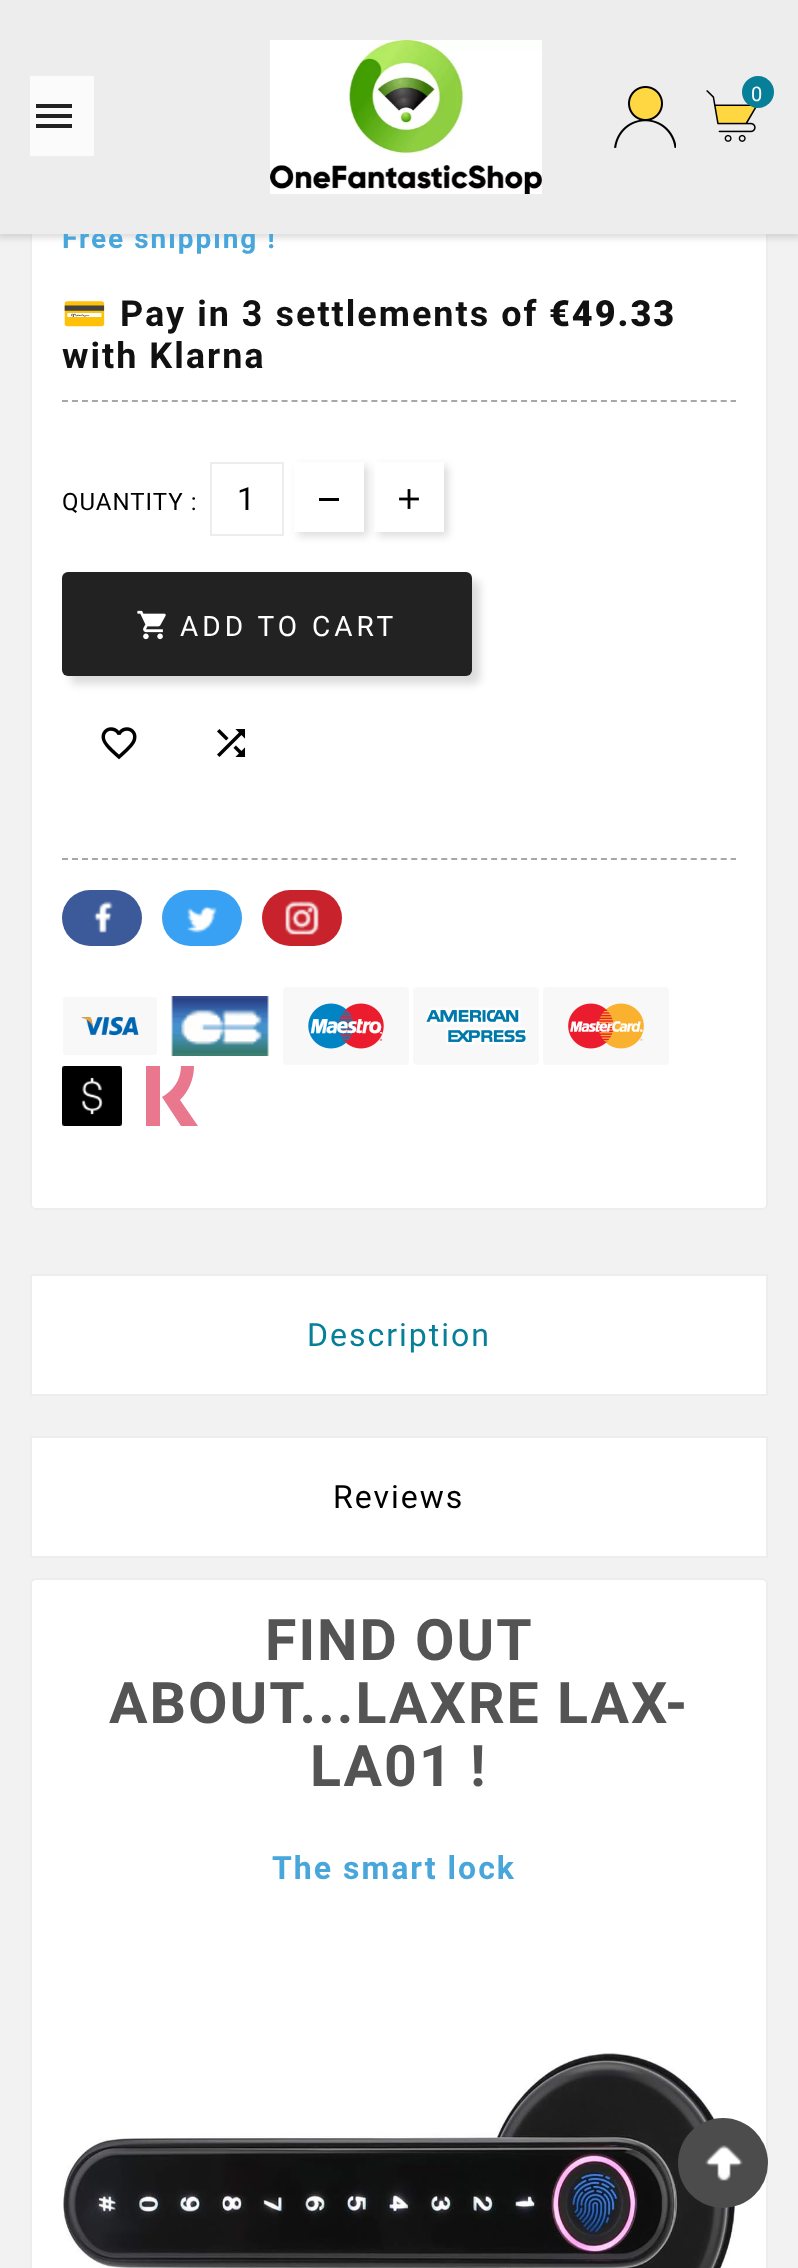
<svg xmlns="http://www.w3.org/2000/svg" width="798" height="2268">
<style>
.a{font:bold 28px Roboto;letter-spacing:2px;fill:#48a6db}
.b{font:20px Roboto;letter-spacing:2px;fill:#fff}
.c{font:bold 36px Noto Color Emoji;letter-spacing:2px;fill:#111}
.d{font:bold 36px Roboto;letter-spacing:2px;fill:#111}
.e{font:900 36px Roboto;letter-spacing:2px;fill:#111}
.f{font:24px Roboto;letter-spacing:1px;fill:#000}
.g{font:32px Roboto;fill:#000}
.h{font:28px Roboto;letter-spacing:4px;fill:#fff}
.i{font:32px Roboto;letter-spacing:2px;fill:#077f99}
.j{font:32px Roboto;letter-spacing:2px;fill:#000}
.k{font:bold 57.25px Roboto;letter-spacing:2px;fill:#545454}
.l{font:bold 32px Roboto;letter-spacing:2px;fill:#48a6db}
</style>
<defs>
<clipPath id="clip1"><path d="M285 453h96v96h-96zm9 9h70v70h-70z" clip-rule="evenodd"/></clipPath>
<clipPath id="clip2"><path d="M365 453h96v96h-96zm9 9h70v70h-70z" clip-rule="evenodd"/></clipPath>
</defs>
<rect width="100%" height="100%" fill="#f2f2f2"/>
<rect fill="#fff" x="30" y="-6" width="738" height="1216" rx="6"/>
<rect fill="none" stroke="#00000012" stroke-width="2" x="31" y="-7" width="736" height="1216" rx="5"/>
<path fill="#80808045" filter="blur(3px)" d="M-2 0h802v238H-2z"/>
<path fill="none" stroke="#a7a7a7" stroke-width="2" stroke-dasharray="6 3.98" d="M62 401h674"/>
<path fill="none" stroke="#ededed" stroke-width="2" d="M211 463h72v72H211z"/>
<g clip-path="url(#clip1)">
<path fill="#00000024" filter="blur(4px)" d="M298 466h70v70H298z"/>
</g>
<path fill="#000" d="M319 498h20v3H319z"/>
<g clip-path="url(#clip2)">
<path fill="#00000024" filter="blur(4px)" d="M378 466h70v70H378z"/>
</g>
<image href="4.png" x="399" y="489" width="20" height="20"/>
<rect fill="#00000024" filter="blur(4px)" x="70" y="580" width="410" height="104" rx="6"/>
<rect fill="#222" x="62" y="572" width="410" height="104" rx="6"/>
<image href="5.png" x="137" y="610" width="29" height="30"/>
<path fill="none" stroke="#a7a7a7" stroke-width="2" stroke-dasharray="6 3.98" d="M62 859h674"/>
<image href="6.png" x="101" y="727" width="36" height="33"/>
<image href="7.png" x="217" y="729" width="29" height="28"/>
<rect fill="#3c5a99" x="62" y="890" width="80" height="56" rx="28"/>
<image href="8.png" x="93" y="901" width="20" height="32"/>
<rect fill="#38a1f3" x="162" y="890" width="80" height="56" rx="28"/>
<image href="9.png" x="187" y="905" width="30" height="28"/>
<rect fill="#c8232c" x="262" y="890" width="80" height="56" rx="28"/>
<image href="10.png" x="285" y="901" width="34" height="34"/>
<image href="11.png" x="63" y="997" width="94" height="58"/>
<image href="12.png" x="171" y="996" width="98" height="60"/>
<image href="13.png" x="283" y="987" width="126" height="78"/>
<image href="14.png" x="413" y="987" width="126" height="78"/>
<image href="15.png" x="543" y="987" width="126" height="78"/>
<image href="16.png" x="62" y="1066" width="60" height="60"/>
<path fill="#e9778d" fill-rule="evenodd" d="M194 1066h-13c0 14-8 25-19 31l19 29h17l-18-26c9-9 14-21 14-34zm-48 60h14v-60h-14z"/>
<path fill="#fff" stroke="#ededed" stroke-width="2" d="M31 1275h736v120H31z"/>
<path fill="#fff" stroke="#ededed" stroke-width="2" d="M31 1437h736v120H31z"/>
<rect fill="#fff" x="30" y="1578" width="738" height="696" rx="6"/>
<rect fill="none" stroke="#00000012" stroke-width="2" x="31" y="1579" width="736" height="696" rx="5"/>
<image href="17.png" x="63" y="2053" width="672" height="215"/>
<circle fill="#4c4c4c" cx="723" cy="2163" r="45"/>
<image href="18.png" x="705" y="2145" width="38" height="36"/>
<text class="a" x="62" y="248">Free shipping !</text>
<path fill="#ededed" d="M0 0h798v234H0z"/>
<image href="3.png" x="706" y="90" width="51" height="52"/>
<circle fill="#077f99" cx="758" cy="92" r="16"/>
<text class="b" x="751" y="101">0</text>
<image href="2.png" x="614" y="86" width="62" height="62"/>
<image href="1.png" x="270" y="40" width="272" height="154"/>
<path fill="#fbfbfb" d="M30 76h64v80H30z"/>
<path fill="#222" d="M36 104h36v4h-36zm0 14v-4h36v4zm0 10v-4h36v4z"/>
<text class="c" x="62" y="326">💳</text>
<text class="d" x="120" y="326">Pay in 3 settlements of</text>
<text class="e" x="549" y="326">€49.33</text>
<text class="d" x="62" y="368">with Klarna</text>
<text class="f" x="62" y="510">QUANTITY :</text>
<text class="g" x="237" y="510">1</text>
<text class="h" x="180" y="636">ADD TO CART</text>
<text class="i" x="307" y="1346">Description</text>
<text class="j" x="333" y="1508">Reviews</text>
<text class="k" x="265" y="1660">FIND OUT</text>
<text class="k" x="109" y="1723">ABOUT...LAXRE LAX-</text>
<text class="k" x="310" y="1786">LA01 !</text>
<text class="l" x="272" y="1879">The smart lock</text>
</svg>
